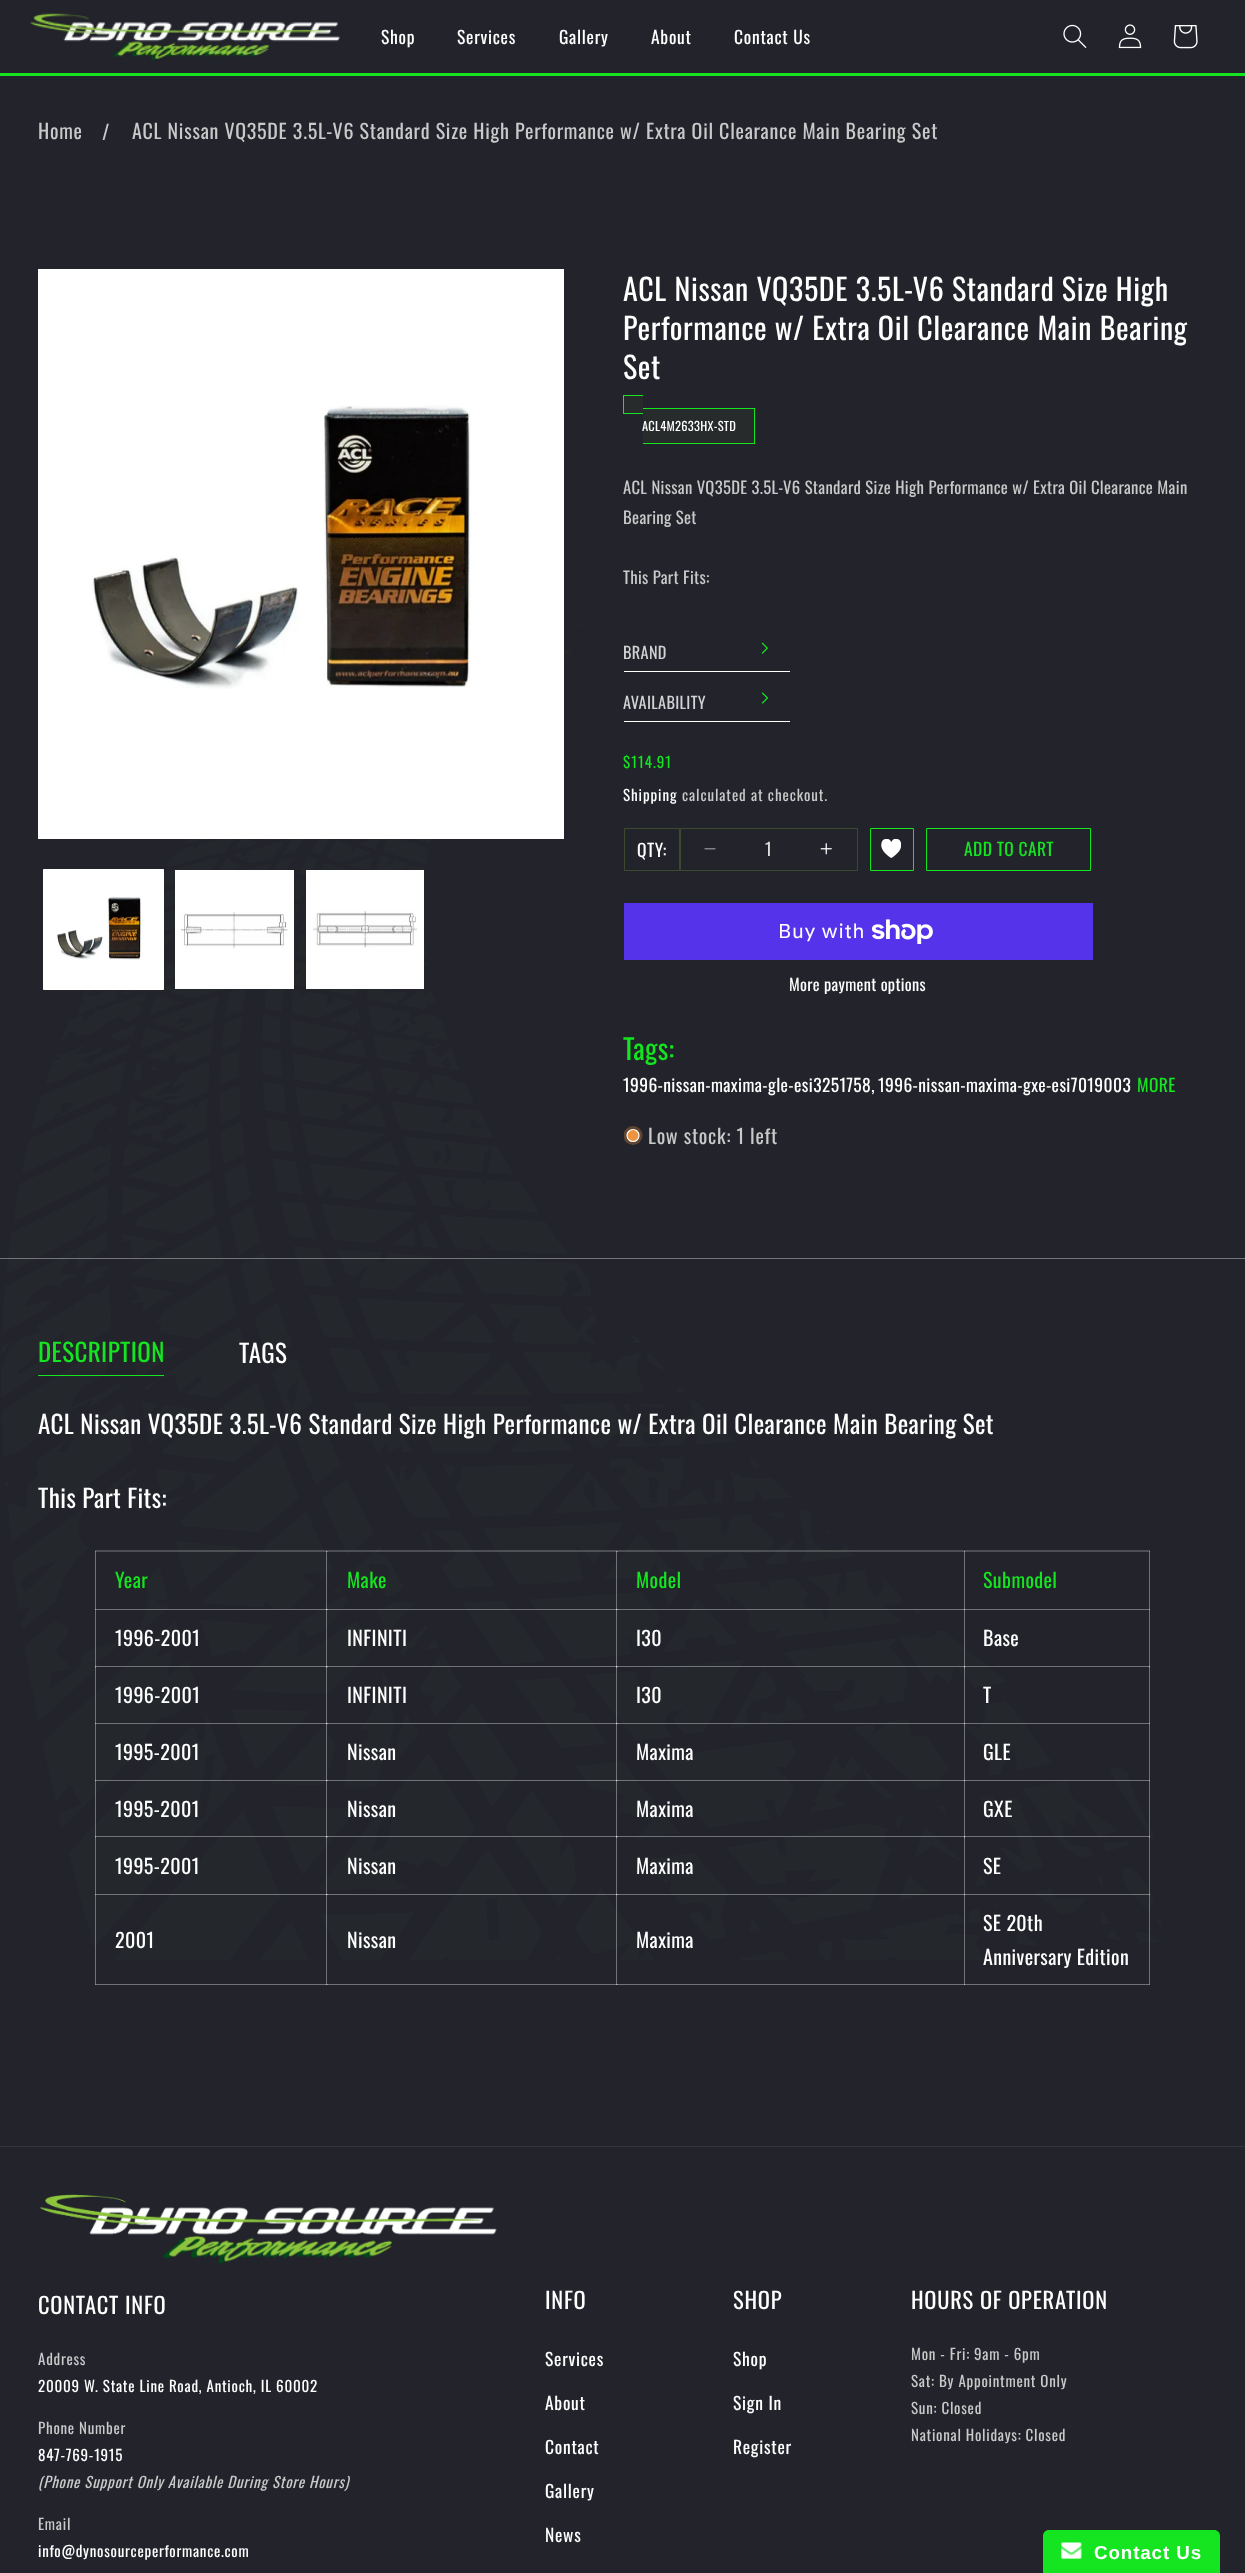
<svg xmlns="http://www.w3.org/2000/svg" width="1245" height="2573">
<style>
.a{font:17.5px Oswald;letter-spacing:0.75px;fill:#fff}
.b{font:20px Oswald;letter-spacing:0.75px;fill:#c8cac9}
.c{font:30px Oswald;letter-spacing:0.65px;fill:#fff}
.d{font:12.5px Oswald;letter-spacing:0.25px;fill:#fff}
.e{font:16.65px Oswald;letter-spacing:0.33px;fill:#c8cac9}
.f{font:16.25px Oswald;letter-spacing:0.33px;fill:#d3d3d5}
.g{font:15px Oswald;letter-spacing:1px;fill:#15e521}
.h{font:15px Oswald;letter-spacing:0.9px;fill:#fff}
.i{font:15px Oswald;letter-spacing:0.9px;fill:#c8cac9}
.j{font:17.5px Oswald;letter-spacing:0.5px;fill:#fff}
.k{font:17.5px Oswald;letter-spacing:0.4px;fill:#dededf}
.l{font:17.5px Oswald;letter-spacing:0.4px;fill:#15e521}
.m{font:20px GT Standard;letter-spacing:0.75px;fill:#fff}
.n{font:16.25px Oswald;letter-spacing:0.33px;fill:#fff}
.o{font:28px Oswald;letter-spacing:0.4px;fill:#15e521}
.p{font:17.5px Oswald;letter-spacing:0.4px;fill:#fff}
.q{font:25px Oswald;letter-spacing:0.4px;fill:#15e521}
.r{font:25px Oswald;letter-spacing:0.4px;fill:#fff}
.s{font:20px Oswald;letter-spacing:0.4px;fill:#15e521}
.t{font:20px Oswald;letter-spacing:0.4px;fill:#fff}
.u{font:22.5px Oswald;letter-spacing:0.75px;fill:#fff}
.v{font:15px Oswald;letter-spacing:0.75px;fill:#c8cac9}
.w{font:15px Oswald;letter-spacing:0.75px;fill:#fff}
.x{font:italic 15px Oswald;letter-spacing:0.75px;fill:#c8cac9}
.y{font:bold 18.75px Liberation Sans;letter-spacing:0.9px;fill:#fff}
</style>
<defs>
<clipPath id="clip1"><path d="M624 1126h19v19H624z"/></clipPath>
</defs>
<rect width="100%" height="100%" fill="#22232b"/>
<image href="1.png" x="1" y="616" width="1161" height="1344"/>
<path fill="#15e521" d="M0 73h1245v3H0z"/>
<image href="2.png" x="30" y="13" width="311" height="48"/>
<image href="3.png" x="1063" y="24" width="24" height="24"/>
<image href="4.png" x="1118" y="24" width="24" height="25"/>
<image href="5.png" x="1173" y="25" width="25" height="24"/>
<path fill="#ffffff5e" d="M0 1258h1245v1H0z"/>
<path fill="#fff" d="M38 269h526v570H38z"/>
<image href="6.png" x="91" y="405" width="380" height="284"/>
<path fill="#fff" stroke="#fff" d="M43.5 869.5h120v120H43.5z"/>
<image href="7.png" x="56" y="896" width="87" height="64"/>
<path fill="#fff" d="M175 870h119v119H175z"/>
<image href="8.png" x="180" y="912" width="108" height="37"/>
<path fill="#fff" d="M306 870h118v119H306z"/>
<image href="9.png" x="313" y="910" width="104" height="38"/>
<path fill="#272b2c" d="M624 396h19v17H624z"/>
<path fill="#15e521" d="M623 395h20v1H623z"/>
<path fill="#15e521" d="M623 413h20v1H623z"/>
<path fill="#15e521" d="M623 395h1v19H623z"/>
<path fill="#272b2c" d="M643 409h111v34H643z"/>
<path fill="#15e521" d="M643 408h112v1H643z"/>
<path fill="#15e521" d="M754 408h1v36H754z"/>
<path fill="#15e521" d="M643 443h112v1H643z"/>
<path fill="#fff" d="M624 671h166v1H624z"/>
<image href="10.png" x="761" y="642" width="7" height="12"/>
<path fill="#fff" d="M624 721h166v1H624z"/>
<image href="11.png" x="761" y="692" width="7" height="12"/>
<path fill="none" stroke="#3c4a30" d="M624.5 828.5h55v42H624.5z"/>
<path fill="none" stroke="#3c4a30" d="M680.5 828.5h177v42H680.5z"/>
<image href="12.png" x="704" y="848" width="12" height="2"/>
<image href="13.png" x="820" y="843" width="12" height="12"/>
<path fill="none" stroke="#15e521" d="M870.5 828.5h43v42H870.5z"/>
<image href="14.png" x="881" y="839" width="20" height="19"/>
<path fill="none" stroke="#15e521" d="M926.5 828.5h164v42H926.5z"/>
<path fill="#5433eb" d="M624 903h469v57H624z"/>
<image href="15.png" x="871" y="919" width="62" height="25"/>
<g clip-path="url(#clip1)">
<circle fill="#5f4532" cx="633" cy="1135.5" r="9.5"/>
</g>
<circle fill="#ee9441" stroke="#fff" stroke-width="1.2" cx="633" cy="1135.5" r="6"/>
<path fill="#15e521" d="M38 1375h126v1H38z"/>
<path fill="none" stroke="#ffffff33" d="M95.5 1550.5h1054v434H95.5z"/>
<path fill="#ffffff33" d="M964 1551h186v1H964z"/>
<path fill="#ffffff33" d="M964 1609h186v1H964z"/>
<path fill="#ffffff33" d="M964 1666h186v1H964z"/>
<path fill="#ffffff33" d="M964 1723h186v1H964z"/>
<path fill="#ffffff33" d="M964 1780h186v1H964z"/>
<path fill="#ffffff33" d="M964 1836h186v1H964z"/>
<path fill="#ffffff33" d="M964 1894h186v1H964z"/>
<path fill="#ffffff33" d="M1149 1894h1v91H1149z"/>
<path fill="#ffffff33" d="M1149 1836h1v59H1149z"/>
<path fill="#ffffff33" d="M1149 1780h1v58H1149z"/>
<path fill="#ffffff33" d="M1149 1723h1v58H1149z"/>
<path fill="#ffffff33" d="M1149 1666h1v58H1149z"/>
<path fill="#ffffff33" d="M1149 1609h1v59H1149z"/>
<path fill="#ffffff33" d="M1149 1551h1v59H1149z"/>
<path fill="#ffffff33" d="M964 1984h186v1H964z"/>
<path fill="#ffffff33" d="M964 1894h1v91H964z"/>
<path fill="#ffffff33" d="M616 1894h349v1H616z"/>
<path fill="#ffffff33" d="M964 1894h1v91H964z"/>
<path fill="#ffffff33" d="M964 1894h186v1H964z"/>
<path fill="#ffffff33" d="M964 1836h1v59H964z"/>
<path fill="#ffffff33" d="M616 1836h349v1H616z"/>
<path fill="#ffffff33" d="M964 1836h1v59H964z"/>
<path fill="#ffffff33" d="M964 1836h186v1H964z"/>
<path fill="#ffffff33" d="M964 1780h1v58H964z"/>
<path fill="#ffffff33" d="M616 1780h349v1H616z"/>
<path fill="#ffffff33" d="M964 1780h1v58H964z"/>
<path fill="#ffffff33" d="M964 1780h186v1H964z"/>
<path fill="#ffffff33" d="M964 1723h1v58H964z"/>
<path fill="#ffffff33" d="M616 1723h349v1H616z"/>
<path fill="#ffffff33" d="M964 1723h1v58H964z"/>
<path fill="#ffffff33" d="M964 1723h186v1H964z"/>
<path fill="#ffffff33" d="M964 1666h1v58H964z"/>
<path fill="#ffffff33" d="M616 1666h349v1H616z"/>
<path fill="#ffffff33" d="M964 1666h1v58H964z"/>
<path fill="#ffffff33" d="M964 1666h186v1H964z"/>
<path fill="#ffffff33" d="M964 1609h1v59H964z"/>
<path fill="#ffffff33" d="M616 1609h349v1H616z"/>
<path fill="#ffffff33" d="M964 1609h1v59H964z"/>
<path fill="#ffffff33" d="M964 1609h186v1H964z"/>
<path fill="#ffffff33" d="M964 1551h1v59H964z"/>
<path fill="#ffffff33" d="M616 1551h349v1H616z"/>
<path fill="#ffffff33" d="M964 1551h1v59H964z"/>
<path fill="#ffffff33" d="M616 1984h349v1H616z"/>
<path fill="#ffffff33" d="M616 1894h1v91H616z"/>
<path fill="#ffffff33" d="M326 1894h292v1H326z"/>
<path fill="#ffffff33" d="M616 1894h1v91H616z"/>
<path fill="#ffffff33" d="M616 1894h349v1H616z"/>
<path fill="#ffffff33" d="M616 1836h1v59H616z"/>
<path fill="#ffffff33" d="M326 1836h292v1H326z"/>
<path fill="#ffffff33" d="M616 1836h1v59H616z"/>
<path fill="#ffffff33" d="M616 1836h349v1H616z"/>
<path fill="#ffffff33" d="M616 1780h1v58H616z"/>
<path fill="#ffffff33" d="M326 1780h292v1H326z"/>
<path fill="#ffffff33" d="M616 1780h1v58H616z"/>
<path fill="#ffffff33" d="M616 1780h349v1H616z"/>
<path fill="#ffffff33" d="M616 1723h1v58H616z"/>
<path fill="#ffffff33" d="M326 1723h292v1H326z"/>
<path fill="#ffffff33" d="M616 1723h1v58H616z"/>
<path fill="#ffffff33" d="M616 1723h349v1H616z"/>
<path fill="#ffffff33" d="M616 1666h1v58H616z"/>
<path fill="#ffffff33" d="M326 1666h292v1H326z"/>
<path fill="#ffffff33" d="M616 1666h1v58H616z"/>
<path fill="#ffffff33" d="M616 1666h349v1H616z"/>
<path fill="#ffffff33" d="M616 1609h1v59H616z"/>
<path fill="#ffffff33" d="M326 1609h292v1H326z"/>
<path fill="#ffffff33" d="M616 1609h1v59H616z"/>
<path fill="#ffffff33" d="M616 1609h349v1H616z"/>
<path fill="#ffffff33" d="M616 1551h1v59H616z"/>
<path fill="#ffffff33" d="M326 1551h292v1H326z"/>
<path fill="#ffffff33" d="M616 1551h1v59H616z"/>
<path fill="#ffffff33" d="M326 1984h292v1H326z"/>
<path fill="#ffffff33" d="M326 1894h1v91H326z"/>
<path fill="#ffffff33" d="M95 1894h233v1H95z"/>
<path fill="#ffffff33" d="M326 1894h1v91H326z"/>
<path fill="#ffffff33" d="M326 1894h292v1H326z"/>
<path fill="#ffffff33" d="M326 1836h1v59H326z"/>
<path fill="#ffffff33" d="M95 1836h233v1H95z"/>
<path fill="#ffffff33" d="M326 1836h1v59H326z"/>
<path fill="#ffffff33" d="M326 1836h292v1H326z"/>
<path fill="#ffffff33" d="M326 1780h1v58H326z"/>
<path fill="#ffffff33" d="M95 1780h233v1H95z"/>
<path fill="#ffffff33" d="M326 1780h1v58H326z"/>
<path fill="#ffffff33" d="M326 1780h292v1H326z"/>
<path fill="#ffffff33" d="M326 1723h1v58H326z"/>
<path fill="#ffffff33" d="M95 1723h233v1H95z"/>
<path fill="#ffffff33" d="M326 1723h1v58H326z"/>
<path fill="#ffffff33" d="M326 1723h292v1H326z"/>
<path fill="#ffffff33" d="M326 1666h1v58H326z"/>
<path fill="#ffffff33" d="M95 1666h233v1H95z"/>
<path fill="#ffffff33" d="M326 1666h1v58H326z"/>
<path fill="#ffffff33" d="M326 1666h292v1H326z"/>
<path fill="#ffffff33" d="M326 1609h1v59H326z"/>
<path fill="#ffffff33" d="M95 1609h233v1H95z"/>
<path fill="#ffffff33" d="M326 1609h1v59H326z"/>
<path fill="#ffffff33" d="M326 1609h292v1H326z"/>
<path fill="#ffffff33" d="M326 1551h1v59H326z"/>
<path fill="#ffffff33" d="M95 1551h233v1H95z"/>
<path fill="#ffffff33" d="M326 1551h1v59H326z"/>
<path fill="#ffffff33" d="M95 1984h233v1H95z"/>
<path fill="#ffffff33" d="M95 1894h1v91H95z"/>
<path fill="#ffffff33" d="M95 1894h233v1H95z"/>
<path fill="#ffffff33" d="M95 1836h1v59H95z"/>
<path fill="#ffffff33" d="M95 1836h233v1H95z"/>
<path fill="#ffffff33" d="M95 1780h1v58H95z"/>
<path fill="#ffffff33" d="M95 1780h233v1H95z"/>
<path fill="#ffffff33" d="M95 1723h1v58H95z"/>
<path fill="#ffffff33" d="M95 1723h233v1H95z"/>
<path fill="#ffffff33" d="M95 1666h1v58H95z"/>
<path fill="#ffffff33" d="M95 1666h233v1H95z"/>
<path fill="#ffffff33" d="M95 1609h1v59H95z"/>
<path fill="#ffffff33" d="M95 1609h233v1H95z"/>
<path fill="#ffffff33" d="M95 1551h1v59H95z"/>
<path fill="#34353c" d="M0 2146h1245v1H0z"/>
<image href="16.png" x="40" y="2194" width="457" height="70"/>
<path fill="#15e521" d="M1049 2530h165c3.5 0 6 2.5 6 6v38h-177v-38c0-3.5 2.5-6 6-6z"/>
<image href="17.png" x="1061" y="2542" width="21" height="17"/>
<text class="a" x="381" y="44">Shop</text>
<text class="a" x="457" y="44">Services</text>
<text class="a" x="559" y="44">Gallery</text>
<text class="a" x="651" y="44">About</text>
<text class="a" x="734" y="44">Contact Us</text>
<text class="b" x="38" y="139">Home</text>
<text class="b" x="102" y="140">/</text>
<text class="b" x="132" y="139">ACL Nissan VQ35DE 3.5L-V6 Standard Size High Performance w/ Extra Oil Clearance Main Bearing Set</text>
<text class="c" x="623" y="301">ACL Nissan VQ35DE 3.5L-V6 Standard Size High</text>
<text class="c" x="623" y="340">Performance w/ Extra Oil Clearance Main Bearing</text>
<text class="c" x="623" y="379">Set</text>
<text class="d" x="642" y="431">ACL4M2633HX-STD</text>
<text class="e" x="623" y="494">ACL Nissan VQ35DE 3.5L-V6 Standard Size High Performance w/ Extra Oil Clearance Main</text>
<text class="e" x="623" y="524">Bearing Set</text>
<text class="e" x="623" y="584">This Part Fits:</text>
<text class="f" x="623" y="659">BRAND</text>
<text class="f" x="623" y="709">AVAILABILITY</text>
<text class="g" x="623" y="768">$114.91</text>
<text class="h" x="623" y="801">Shipping</text>
<text class="i" x="682" y="801">calculated at checkout.</text>
<text class="j" x="637" y="857">QTY:</text>
<text class="k" x="765" y="856">1</text>
<text class="l" x="964" y="856">ADD TO CART</text>
<text class="m" x="778" y="938">Buy with</text>
<text class="n" x="789" y="991">More payment options</text>
<text class="o" x="623" y="1060">Tags:</text>
<text class="p" x="623" y="1092">1996-nissan-maxima-gle-esi3251758,</text>
<text class="p" x="878" y="1092">1996-nissan-maxima-gxe-esi7019003</text>
<text class="l" x="1137" y="1092">MORE</text>
<text class="b" x="648" y="1144">Low stock: 1 left</text>
<text class="q" x="38" y="1362">DESCRIPTION</text>
<text class="r" x="239" y="1363">TAGS</text>
<text class="r" x="38" y="1434">ACL Nissan VQ35DE 3.5L-V6 Standard Size High Performance w/ Extra Oil Clearance Main Bearing Set</text>
<text class="r" x="38" y="1508">This Part Fits:</text>
<text class="s" x="115" y="1588">Year</text>
<text class="s" x="347" y="1588">Make</text>
<text class="s" x="636" y="1588">Model</text>
<text class="s" x="983" y="1588">Submodel</text>
<text class="t" x="115" y="1646">1996-2001</text>
<text class="t" x="347" y="1646">INFINITI</text>
<text class="t" x="636" y="1646">I30</text>
<text class="t" x="983" y="1646">Base</text>
<text class="t" x="115" y="1703">1996-2001</text>
<text class="t" x="347" y="1703">INFINITI</text>
<text class="t" x="636" y="1703">I30</text>
<text class="t" x="983" y="1703">T</text>
<text class="t" x="115" y="1760">1995-2001</text>
<text class="t" x="347" y="1760">Nissan</text>
<text class="t" x="636" y="1760">Maxima</text>
<text class="t" x="983" y="1760">GLE</text>
<text class="t" x="115" y="1817">1995-2001</text>
<text class="t" x="347" y="1817">Nissan</text>
<text class="t" x="636" y="1817">Maxima</text>
<text class="t" x="983" y="1817">GXE</text>
<text class="t" x="115" y="1874">1995-2001</text>
<text class="t" x="347" y="1874">Nissan</text>
<text class="t" x="636" y="1874">Maxima</text>
<text class="t" x="983" y="1874">SE</text>
<text class="t" x="115" y="1948">2001</text>
<text class="t" x="347" y="1948">Nissan</text>
<text class="t" x="636" y="1948">Maxima</text>
<text class="t" x="983" y="1931">SE 20th</text>
<text class="t" x="983" y="1965">Anniversary Edition</text>
<text class="u" x="38" y="2314">CONTACT INFO</text>
<text class="v" x="38" y="2365">Address</text>
<text class="w" x="38" y="2392">20009 W. State Line Road, Antioch, IL 60002</text>
<text class="v" x="38" y="2434">Phone Number</text>
<text class="w" x="38" y="2461">847-769-1915</text>
<text class="x" x="38" y="2488">(Phone Support Only Available During Store Hours)</text>
<text class="v" x="38" y="2530">Email</text>
<text class="w" x="38" y="2557">info@dynosourceperformance.com</text>
<text class="u" x="545" y="2309">INFO</text>
<text class="a" x="545" y="2366">Services</text>
<text class="a" x="545" y="2410">About</text>
<text class="a" x="545" y="2454">Contact</text>
<text class="a" x="545" y="2498">Gallery</text>
<text class="a" x="545" y="2542">News</text>
<text class="u" x="733" y="2309">SHOP</text>
<text class="a" x="733" y="2366">Shop</text>
<text class="a" x="733" y="2410">Sign In</text>
<text class="a" x="733" y="2454">Register</text>
<text class="u" x="911" y="2309">HOURS OF OPERATION</text>
<text class="v" x="911" y="2360">Mon - Fri: 9am - 6pm</text>
<text class="v" x="911" y="2387">Sat: By Appointment Only</text>
<text class="v" x="911" y="2414">Sun: Closed</text>
<text class="v" x="911" y="2441">National Holidays: Closed</text>
<text class="y" x="1094" y="2559">Contact Us</text>
</svg>
